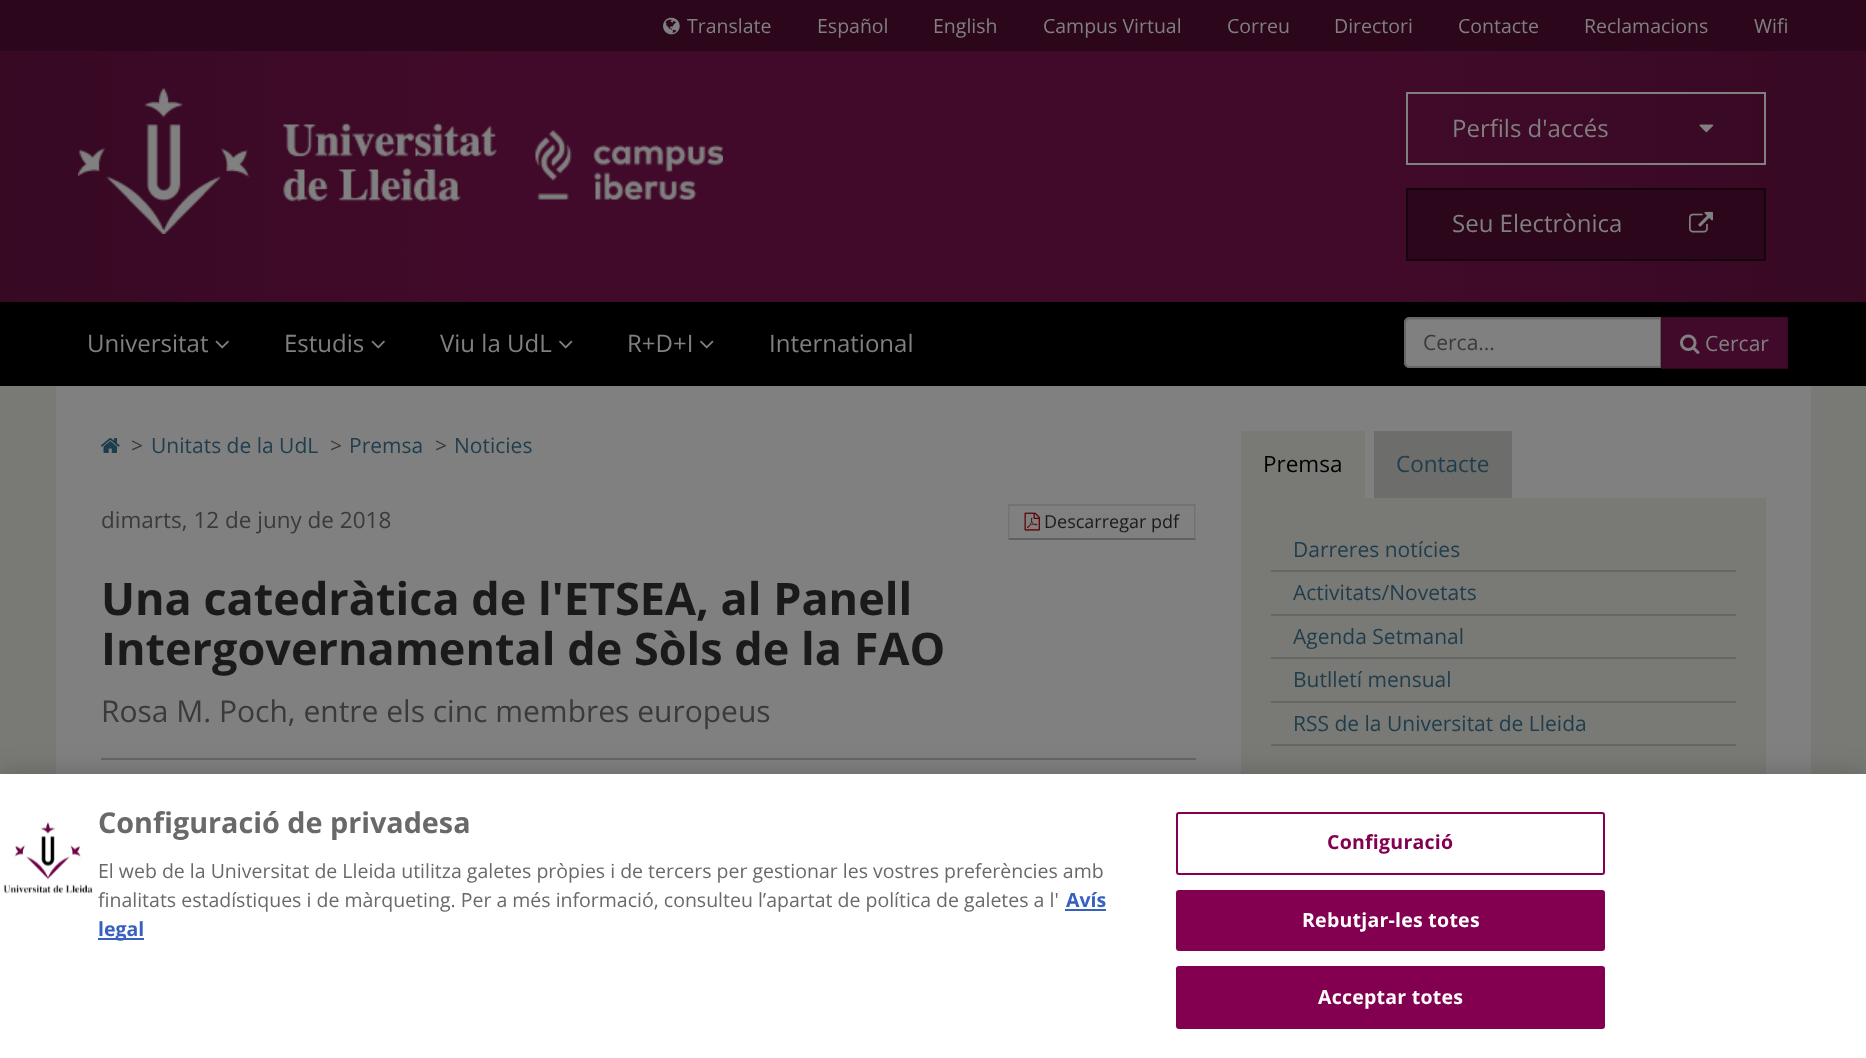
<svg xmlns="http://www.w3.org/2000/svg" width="1866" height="1058">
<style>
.a{font:19.5px Open Sans;fill:#808080}
.b{font:24px Open Sans;fill:#808080}
.c{font:21px Open Sans;fill:#3a3a3a}
.d{font:21px Open Sans;fill:#808080}
.e{font:21px Open Sans;fill:#1f3d4c}
.f{font:22.5px Open Sans;fill:#3a3a3a}
.g{font:bold 45px Open Sans;fill:#1a1a1a}
.h{font:30px Open Sans;fill:#3a3a3a}
.i{font:18px Open Sans;fill:#1a1a1a}
.j{font:22.5px Open Sans;fill:#000}
.k{font:22.5px Open Sans;fill:#1f3d4c}
.l{font:bold 28.75px Open Sans;fill:#696969}
.m{font:19.5px Open Sans;fill:#696969}
.n{font:bold 19.5px Open Sans;fill:#3860be}
.o{font:bold 19.5px Open Sans;letter-spacing:0.25px;fill:#830051}
.p{font:bold 19.5px Open Sans;letter-spacing:0.25px;fill:#fff}
</style>
<defs>
<linearGradient id="g1" gradientUnits="userSpaceOnUse" x1="0" y1="193" x2="1866" y2="193"><stop offset="0" stop-color="#370923"/><stop offset="0.28" stop-color="#420a2a"/><stop offset="0.72" stop-color="#420a2a"/><stop offset="1" stop-color="#370923"/></linearGradient>
</defs>
<rect width="100%" height="100%" fill="#797976"/>
<path fill="url(#g1)" d="M0 51h1866v251H0z"/>
<path fill="#2c071c" d="M0 0h1866v51H0z"/>
<image href="1.png" x="663" y="17" width="17" height="18"/>
<image href="2.png" x="78" y="88" width="645" height="146"/>
<path fill="none" stroke="#808080" stroke-width="2" d="M1407 93h358v71H1407z"/>
<image href="3.png" x="1699" y="124" width="15" height="9"/>
<path fill="#2c071c" stroke="#16030e" stroke-width="2" d="M1407 189h358v71H1407z"/>
<image href="4.png" x="1689" y="211" width="24" height="22"/>
<path fill="#000" d="M0 302h1866v84H0z"/>
<image href="5.png" x="215" y="340" width="14" height="9"/>
<image href="5.png" x="371" y="340" width="14" height="9"/>
<image href="6.png" x="559" y="340" width="14" height="9"/>
<image href="6.png" x="700" y="340" width="14" height="9"/>
<path fill="#808080" d="M1410 317h252v51h-252c-3.5 0-6-2.5-6-6v-39c0-3.5 2.5-6 6-6z"/>
<path fill="#767676" d="M1410 320h250v46h1v-48h-250c-3 0-5 3-5 6c0-2 2-4 4-4z"/>
<path fill="none" stroke="#666" stroke-width="2" d="M1410 318h251v49h-251c-3 0-5-2-5-5v-39c0-3 2-5 5-5z"/>
<path fill="#420a2a" d="M1661 317h127v52H1661z"/>
<path fill="#0000001a" d="M1660 316h128l-2 2h-124z"/>
<path fill="#0000001a" d="M1788 316v53l-2-1v-50z"/>
<path fill="#00000040" d="M1788 369h-128l2-1h124z"/>
<path fill="#0000001a" d="M1660 369v-53l2 2v50z"/>
<image href="7.png" x="1680" y="334" width="20" height="20"/>
<path fill="#808080" d="M56 386h1755v388H56z"/>
<image href="8.png" x="100" y="438" width="20" height="15"/>
<path fill="#666" d="M101 758h1095v2H101z"/>
<path fill="#737373" d="M1008 504h188l-2 2h-184z"/>
<path fill="#0000001a" d="M1195.5 504v36l-1.5-1.5v-33z"/>
<path fill="#00000040" d="M1196 540h-188l2-2h184z"/>
<path fill="#0000001a" d="M1008 540v-36l1.5 1.5v33z"/>
<image href="9.png" x="1024" y="512" width="16" height="19"/>
<path fill="#797976" d="M1241 431h124v67H1241z"/>
<path fill="#6d6d6b" d="M1374 431h138v67H1374z"/>
<path fill="#797976" d="M1241 498h525v276H1241z"/>
<path fill="#666" d="M1271 570h465v2H1271z"/>
<path fill="#666" d="M1271 614h465v2H1271z"/>
<path fill="#666" d="M1271 657h465v2H1271z"/>
<path fill="#666" d="M1271 701h465v2H1271z"/>
<path fill="#666" d="M1271 744h465v2H1271z"/>
<path fill="#00000033" filter="blur(13.5px)" d="M0 774h1866v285H0z"/>
<path fill="#fff" d="M0 774h1866v284H0z"/>
<image href="10.png" x="3" y="822" width="90" height="72"/>
<path fill="#3860be" d="M1065 909h41v2H1065z"/>
<path fill="#3860be" d="M98 938h46v2H98z"/>
<rect fill="none" stroke="#830051" stroke-width="2" x="1177" y="813" width="427" height="61" rx="2"/>
<rect fill="#830051" stroke="#830051" stroke-width="2" x="1177" y="891" width="427" height="59" rx="2"/>
<rect fill="#830051" stroke="#830051" stroke-width="2" x="1177" y="967" width="427" height="61" rx="2"/>
<text class="a" x="687" y="33">Translate</text>
<text class="a" x="817" y="33">Español</text>
<text class="a" x="933" y="33">English</text>
<text class="a" x="1043" y="33">Campus Virtual</text>
<text class="a" x="1227" y="33">Correu</text>
<text class="a" x="1334" y="33">Directori</text>
<text class="a" x="1458" y="33">Contacte</text>
<text class="a" x="1584" y="33">Reclamacions</text>
<text class="a" x="1754" y="33">Wifi</text>
<text class="b" x="1452" y="137">Perfils d'accés</text>
<text class="b" x="1452" y="232">Seu Electrònica</text>
<text class="b" x="87" y="352">Universitat</text>
<text class="b" x="284" y="352">Estudis</text>
<text class="b" x="440" y="352">Viu la UdL</text>
<text class="b" x="627" y="352">R+D+I</text>
<text class="b" x="769" y="352">International</text>
<text class="c" x="1423" y="350">Cerca...</text>
<text class="d" x="1705" y="351">Cercar</text>
<text class="c" x="131" y="453">&gt;</text>
<text class="e" x="151" y="453">Unitats de la UdL</text>
<text class="c" x="330" y="453">&gt;</text>
<text class="e" x="349" y="453">Premsa</text>
<text class="c" x="435" y="453">&gt;</text>
<text class="e" x="454" y="453">Noticies</text>
<text class="f" x="101" y="528">dimarts, 12 de juny de 2018</text>
<text class="g" x="101" y="615">Una catedràtica de l'ETSEA, al Panell</text>
<text class="g" x="101" y="665">Intergovernamental de Sòls de la FAO</text>
<text class="h" x="101" y="722">Rosa M. Poch, entre els cinc membres europeus</text>
<text class="i" x="1044" y="528">Descarregar pdf</text>
<text class="j" x="1263" y="472">Premsa</text>
<text class="k" x="1396" y="472">Contacte</text>
<text class="e" x="1293" y="557">Darreres notícies</text>
<text class="e" x="1293" y="600">Activitats/Novetats</text>
<text class="e" x="1293" y="644">Agenda Setmanal</text>
<text class="e" x="1293" y="687">Butlletí mensual</text>
<text class="e" x="1293" y="731">RSS de la Universitat de Lleida</text>
<text class="l" x="98" y="833">Configuració de privadesa</text>
<text class="m" x="98" y="878">El web de la Universitat de Lleida utilitza galetes pròpies i de tercers per gestionar les vostres preferències amb</text>
<text class="m" x="98" y="907">finalitats estadístiques i de màrqueting. Per a més informació, consulteu l’apartat de política de galetes a l'</text>
<text class="n" x="1066" y="907">Avís</text>
<text class="n" x="98" y="936">legal</text>
<text class="o" x="1327" y="849">Configuració</text>
<text class="p" x="1302" y="927">Rebutjar-les totes</text>
<text class="p" x="1318" y="1004">Acceptar totes</text>
</svg>
